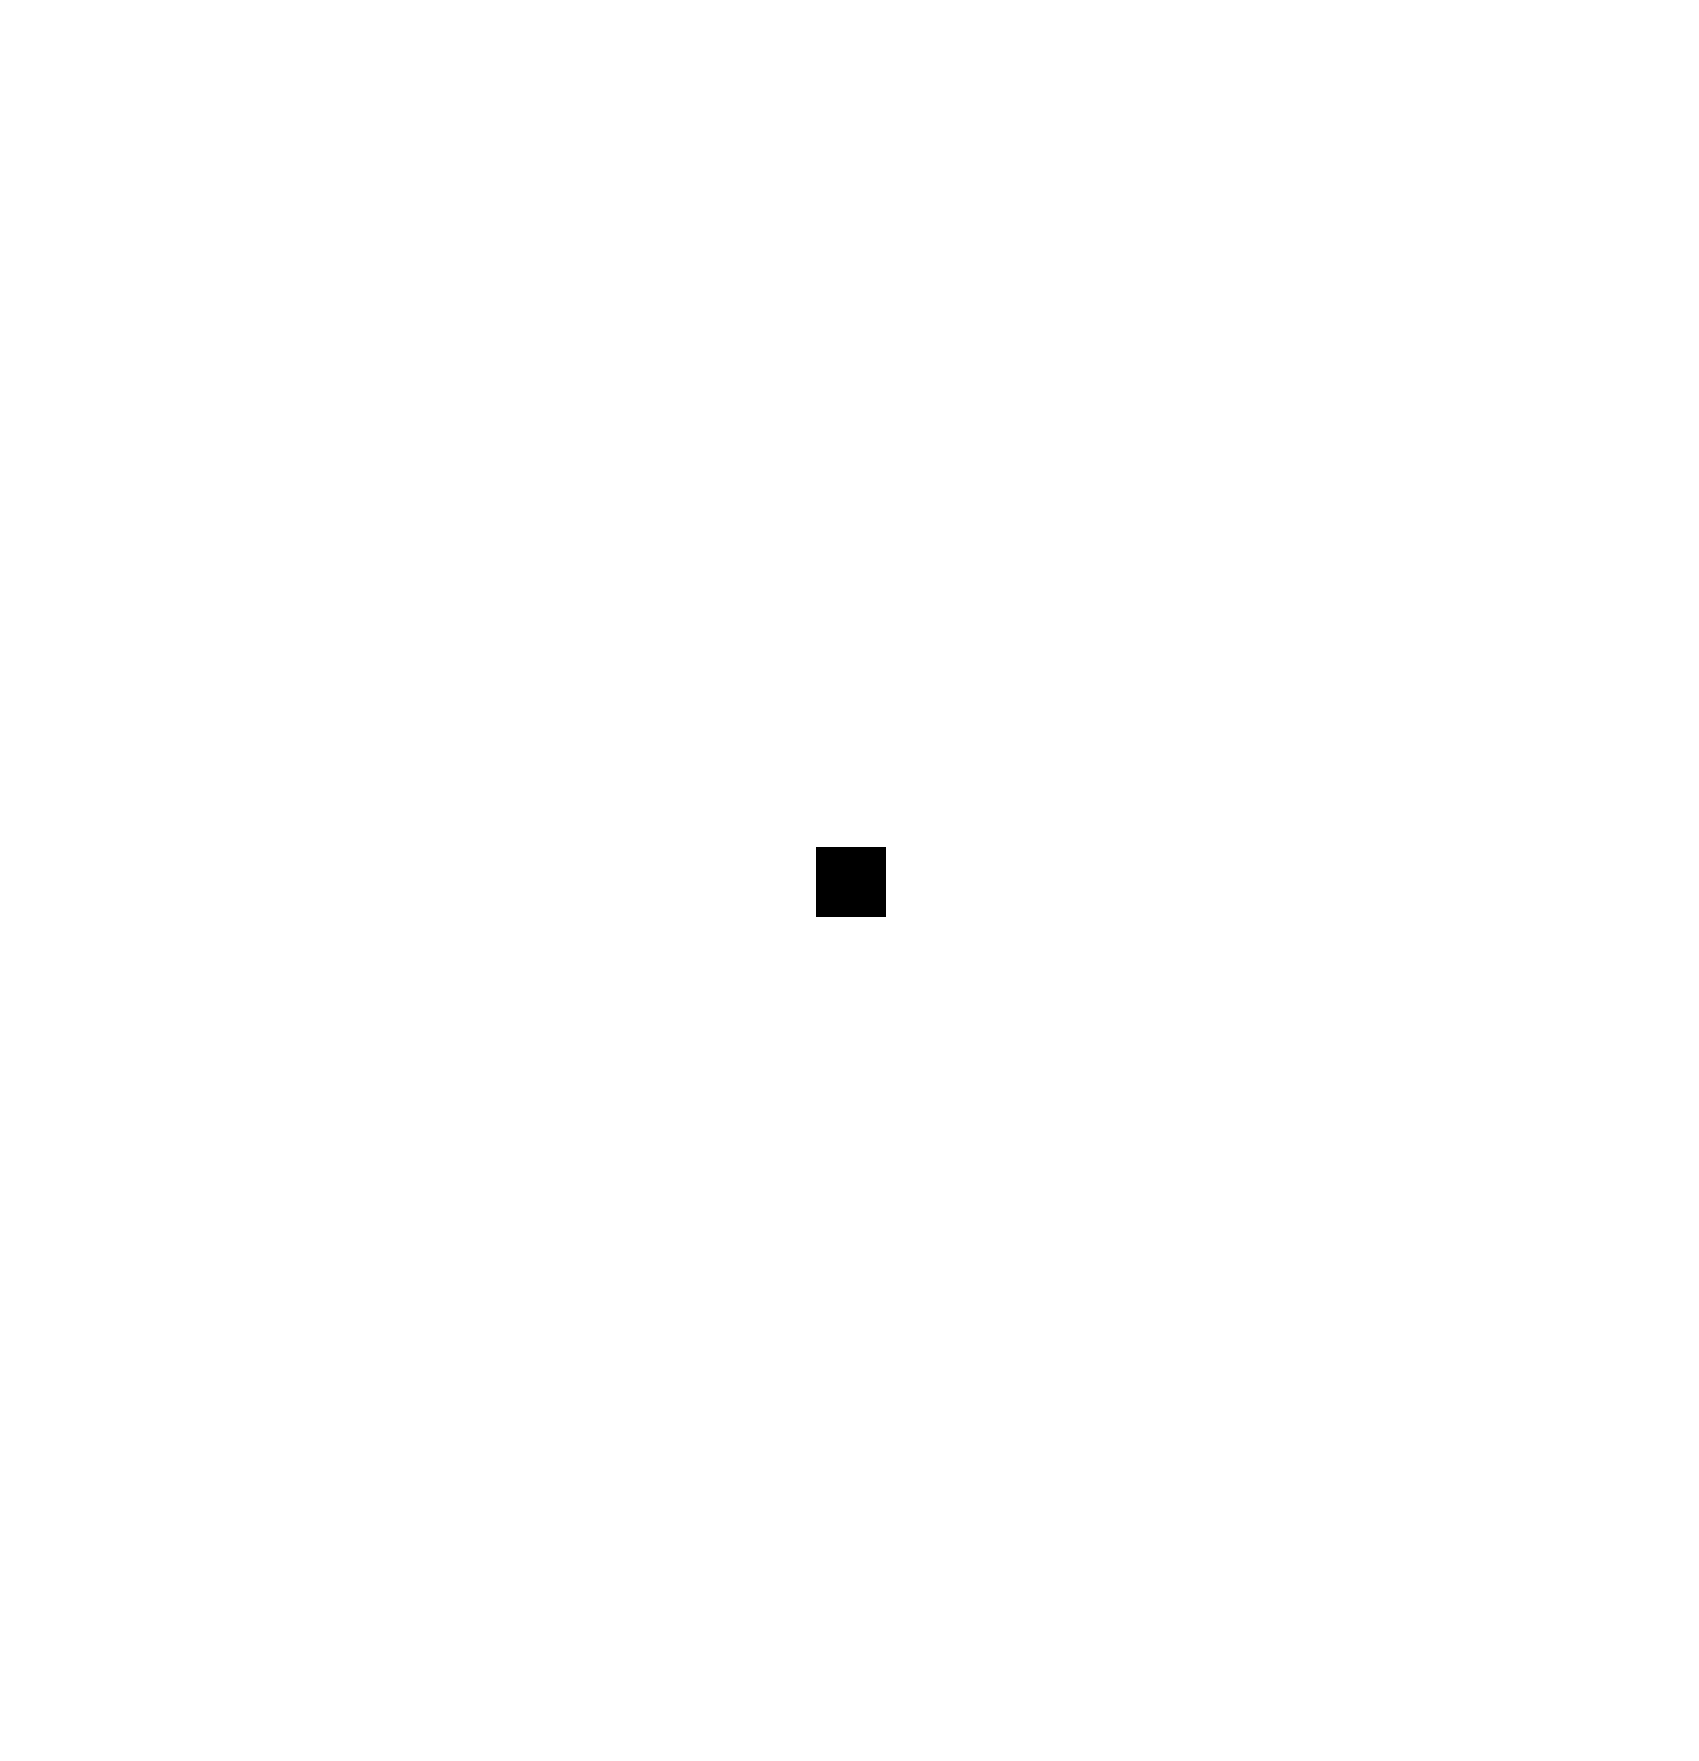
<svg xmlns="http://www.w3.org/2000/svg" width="1699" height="1761">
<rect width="100%" height="100%" fill="#fff"/>
<path fill="#000" d="M816 847h70v70H816z"/>
</svg>
